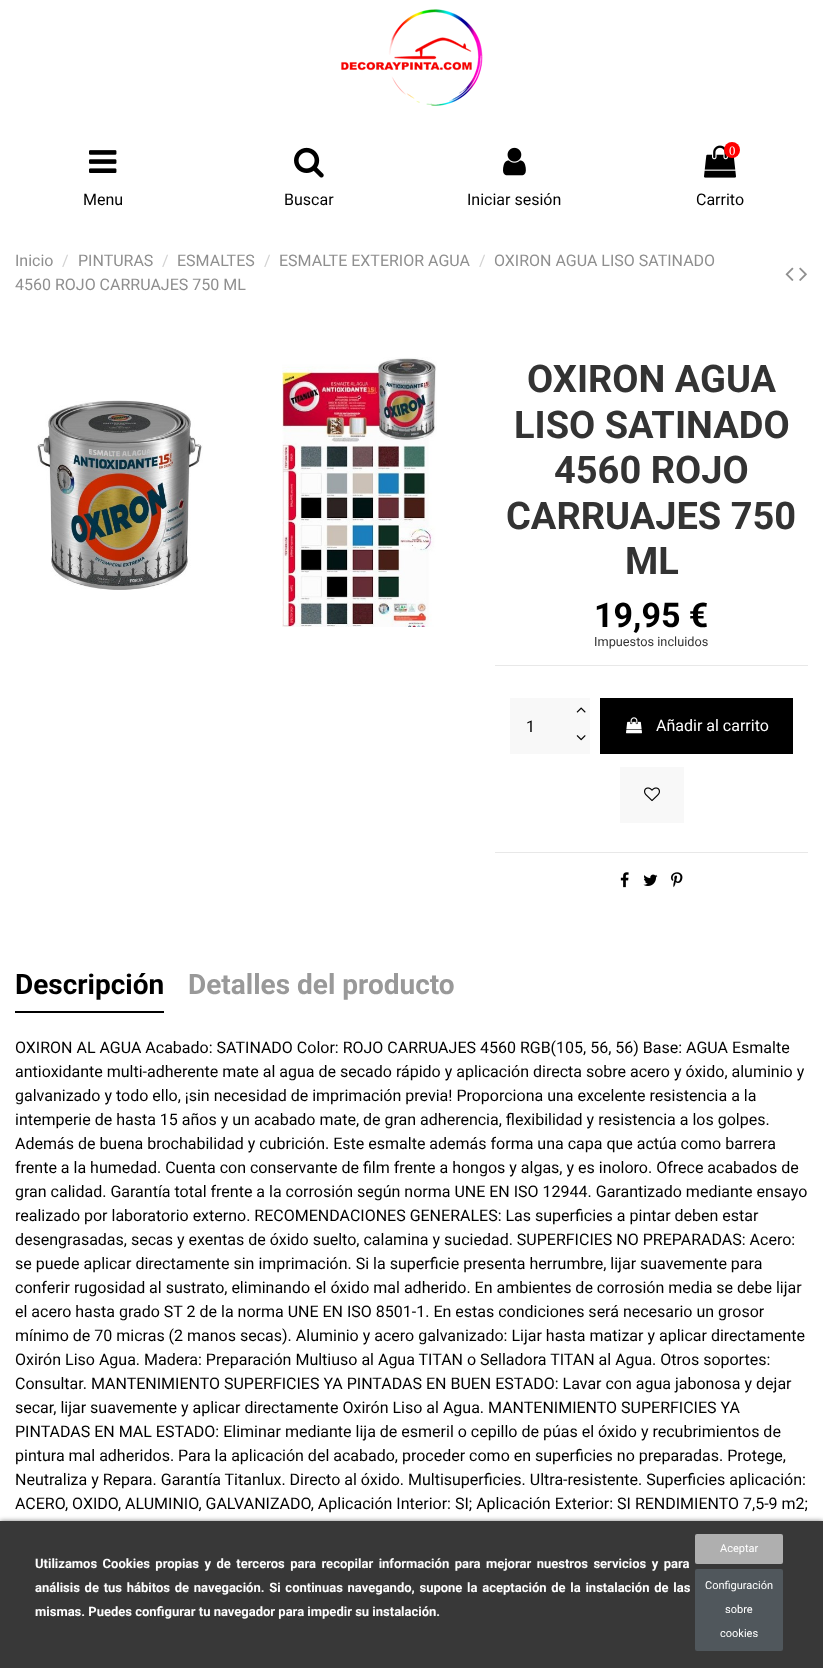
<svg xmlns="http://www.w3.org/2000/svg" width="823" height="1668">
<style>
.a{font:16px Roboto;fill:#000}
.b{font:12.75px Liberation Serif;fill:#fff}
.c{font:16px Roboto;fill:#8f8f8f}
.d{font:16px Roboto;fill:#d2d2d2}
.e{font:bold 38px Roboto;fill:#333}
.f{font:bold 34px Roboto;fill:#000}
.g{font:12.75px Roboto;fill:#333}
.h{font:16px Roboto;fill:#fff}
.i{font:bold 28px Roboto;fill:#000}
.j{font:bold 28px Roboto;fill:#999}
.k{font:bold 13px Roboto;fill:#fff}
.l{font:11px Roboto;fill:#fff}
</style>
<rect width="100%" height="100%" fill="#fff"/>
<image href="1.png" x="341" y="9" width="142" height="97"/>
<image href="2.png" x="89" y="150" width="28" height="23"/>
<image href="3.png" x="294" y="147" width="30" height="31"/>
<image href="4.png" x="503" y="147" width="23" height="29"/>
<image href="5.png" x="704" y="145" width="32" height="33"/>
<circle fill="#f00" cx="732" cy="150" r="8"/>
<image href="6.png" x="785" y="267" width="9" height="14"/>
<image href="7.png" x="799" y="267" width="8" height="14"/>
<image href="8.png" x="37" y="400" width="166" height="190"/>
<image href="9.png" x="282" y="357" width="155" height="270"/>
<path fill="#e8e8e8" d="M495 665h313v1H495z"/>
<path fill="#f8f8f8" d="M510 698h60v56H510z"/>
<path fill="#f8f8f8" d="M570 698h20v56H570z"/>
<image href="10.png" x="576" y="707" width="10" height="6"/>
<image href="11.png" x="576" y="735" width="10" height="6"/>
<path fill="#000" d="M600 698h193v56H600z"/>
<image href="12.png" x="626" y="717" width="16" height="17"/>
<path fill="#f8f8f8" d="M620 767h64v56H620z"/>
<image href="13.png" x="644" y="787" width="16" height="15"/>
<path fill="#e8e8e8" d="M495 852h313v1H495z"/>
<image href="14.png" x="620" y="872" width="9" height="16"/>
<image href="15.png" x="643" y="874" width="15" height="12"/>
<image href="16.png" x="671" y="872" width="12" height="16"/>
<path fill="#000" d="M15 1011h149v2H15z"/>
<path fill="#00000080" filter="blur(2.5px)" d="M0 1521h823v147H0z"/>
<path fill="#383838" d="M0 1521h823v147H0z"/>
<rect fill="#afafaf" x="695" y="1534" width="88" height="30" rx="2"/>
<rect fill="#50575c" x="695" y="1569" width="88" height="82" rx="2"/>
<text class="a" x="83" y="205">Menu</text>
<text class="a" x="284" y="205">Buscar</text>
<text class="a" x="467" y="205">Iniciar sesión</text>
<text class="b" x="729" y="155">0</text>
<text class="a" x="696" y="205">Carrito</text>
<text class="c" x="15" y="266">Inicio</text>
<text class="d" x="62" y="266">/</text>
<text class="c" x="78" y="266">PINTURAS</text>
<text class="d" x="162" y="266">/</text>
<text class="c" x="177" y="266">ESMALTES</text>
<text class="d" x="264" y="266">/</text>
<text class="c" x="279" y="266">ESMALTE EXTERIOR AGUA</text>
<text class="d" x="479" y="266">/</text>
<text class="c" x="494" y="266">OXIRON AGUA LISO SATINADO</text>
<text class="c" x="15" y="290">4560 ROJO CARRUAJES 750 ML</text>
<text class="e" x="527" y="392">OXIRON AGUA</text>
<text class="e" x="514" y="438">LISO SATINADO</text>
<text class="e" x="554" y="483">4560 ROJO</text>
<text class="e" x="506" y="529">CARRUAJES 750</text>
<text class="e" x="625" y="574">ML</text>
<text class="f" x="594" y="627">19,95 €</text>
<text class="g" x="594" y="646">Impuestos incluidos</text>
<text class="a" x="526" y="732">1</text>
<text class="h" x="656" y="731">Añadir al carrito</text>
<text class="i" x="15" y="994">Descripción</text>
<text class="j" x="188" y="994">Detalles del producto</text>
<text class="a" x="15" y="1053">OXIRON AL AGUA Acabado: SATINADO Color: ROJO CARRUAJES 4560 RGB(105, 56, 56) Base: AGUA Esmalte</text>
<text class="a" x="15" y="1077">antioxidante multi-adherente mate al agua de secado rápido y aplicación directa sobre acero y óxido, aluminio y</text>
<text class="a" x="15" y="1101">galvanizado y todo ello, ¡sin necesidad de imprimación previa! Proporciona una excelente resistencia a la</text>
<text class="a" x="15" y="1125">intemperie de hasta 15 años y un acabado mate, de gran adherencia, flexibilidad y resistencia a los golpes.</text>
<text class="a" x="15" y="1149">Además de buena brochabilidad y cubrición. Este esmalte además forma una capa que actúa como barrera</text>
<text class="a" x="15" y="1173">frente a la humedad. Cuenta con conservante de film frente a hongos y algas, y es inoloro. Ofrece acabados de</text>
<text class="a" x="15" y="1197">gran calidad. Garantía total frente a la corrosión según norma UNE EN ISO 12944. Garantizado mediante ensayo</text>
<text class="a" x="15" y="1221">realizado por laboratorio externo. RECOMENDACIONES GENERALES: Las superficies a pintar deben estar</text>
<text class="a" x="15" y="1245">desengrasadas, secas y exentas de óxido suelto, calamina y suciedad. SUPERFICIES NO PREPARADAS: Acero:</text>
<text class="a" x="15" y="1269">se puede aplicar directamente sin imprimación. Si la superficie presenta herrumbre, lijar suavemente para</text>
<text class="a" x="15" y="1293">conferir rugosidad al sustrato, eliminando el óxido mal adherido. En ambientes de corrosión media se debe lijar</text>
<text class="a" x="15" y="1317">el acero hasta grado ST 2 de la norma UNE EN ISO 8501-1. En estas condiciones será necesario un grosor</text>
<text class="a" x="15" y="1341">mínimo de 70 micras (2 manos secas). Aluminio y acero galvanizado: Lijar hasta matizar y aplicar directamente</text>
<text class="a" x="15" y="1365">Oxirón Liso Agua. Madera: Preparación Multiuso al Agua TITAN o Selladora TITAN al Agua. Otros soportes:</text>
<text class="a" x="15" y="1389">Consultar. MANTENIMIENTO SUPERFICIES YA PINTADAS EN BUEN ESTADO: Lavar con agua jabonosa y dejar</text>
<text class="a" x="15" y="1413">secar, lijar suavemente y aplicar directamente Oxirón Liso al Agua. MANTENIMIENTO SUPERFICIES YA</text>
<text class="a" x="15" y="1437">PINTADAS EN MAL ESTADO: Eliminar mediante lija de esmeril o cepillo de púas el óxido y recubrimientos de</text>
<text class="a" x="15" y="1461">pintura mal adheridos. Para la aplicación del acabado, proceder como en superficies no preparadas. Protege,</text>
<text class="a" x="15" y="1485">Neutraliza y Repara. Garantía Titanlux. Directo al óxido. Multisuperficies. Ultra-resistente. Superficies aplicación:</text>
<text class="a" x="15" y="1509">ACERO, OXIDO, ALUMINIO, GALVANIZADO, Aplicación Interior: SI; Aplicación Exterior: SI RENDIMIENTO 7,5-9 m2;</text>
<text class="k" x="35" y="1568" word-spacing="2.25">Utilizamos Cookies propias y de terceros para recopilar información para mejorar nuestros servicios y para</text>
<text class="k" x="35" y="1592" word-spacing="1.5">análisis de tus hábitos de navegación. Si continuas navegando, supone la aceptación de la instalación de las</text>
<text class="k" x="35" y="1616">mismas. Puedes configurar tu navegador para impedir su instalación.</text>
<text class="l" x="720" y="1552">Aceptar</text>
<text class="l" x="705" y="1589">Configuración</text>
<text class="l" x="725" y="1613">sobre</text>
<text class="l" x="720" y="1637">cookies</text>
</svg>
